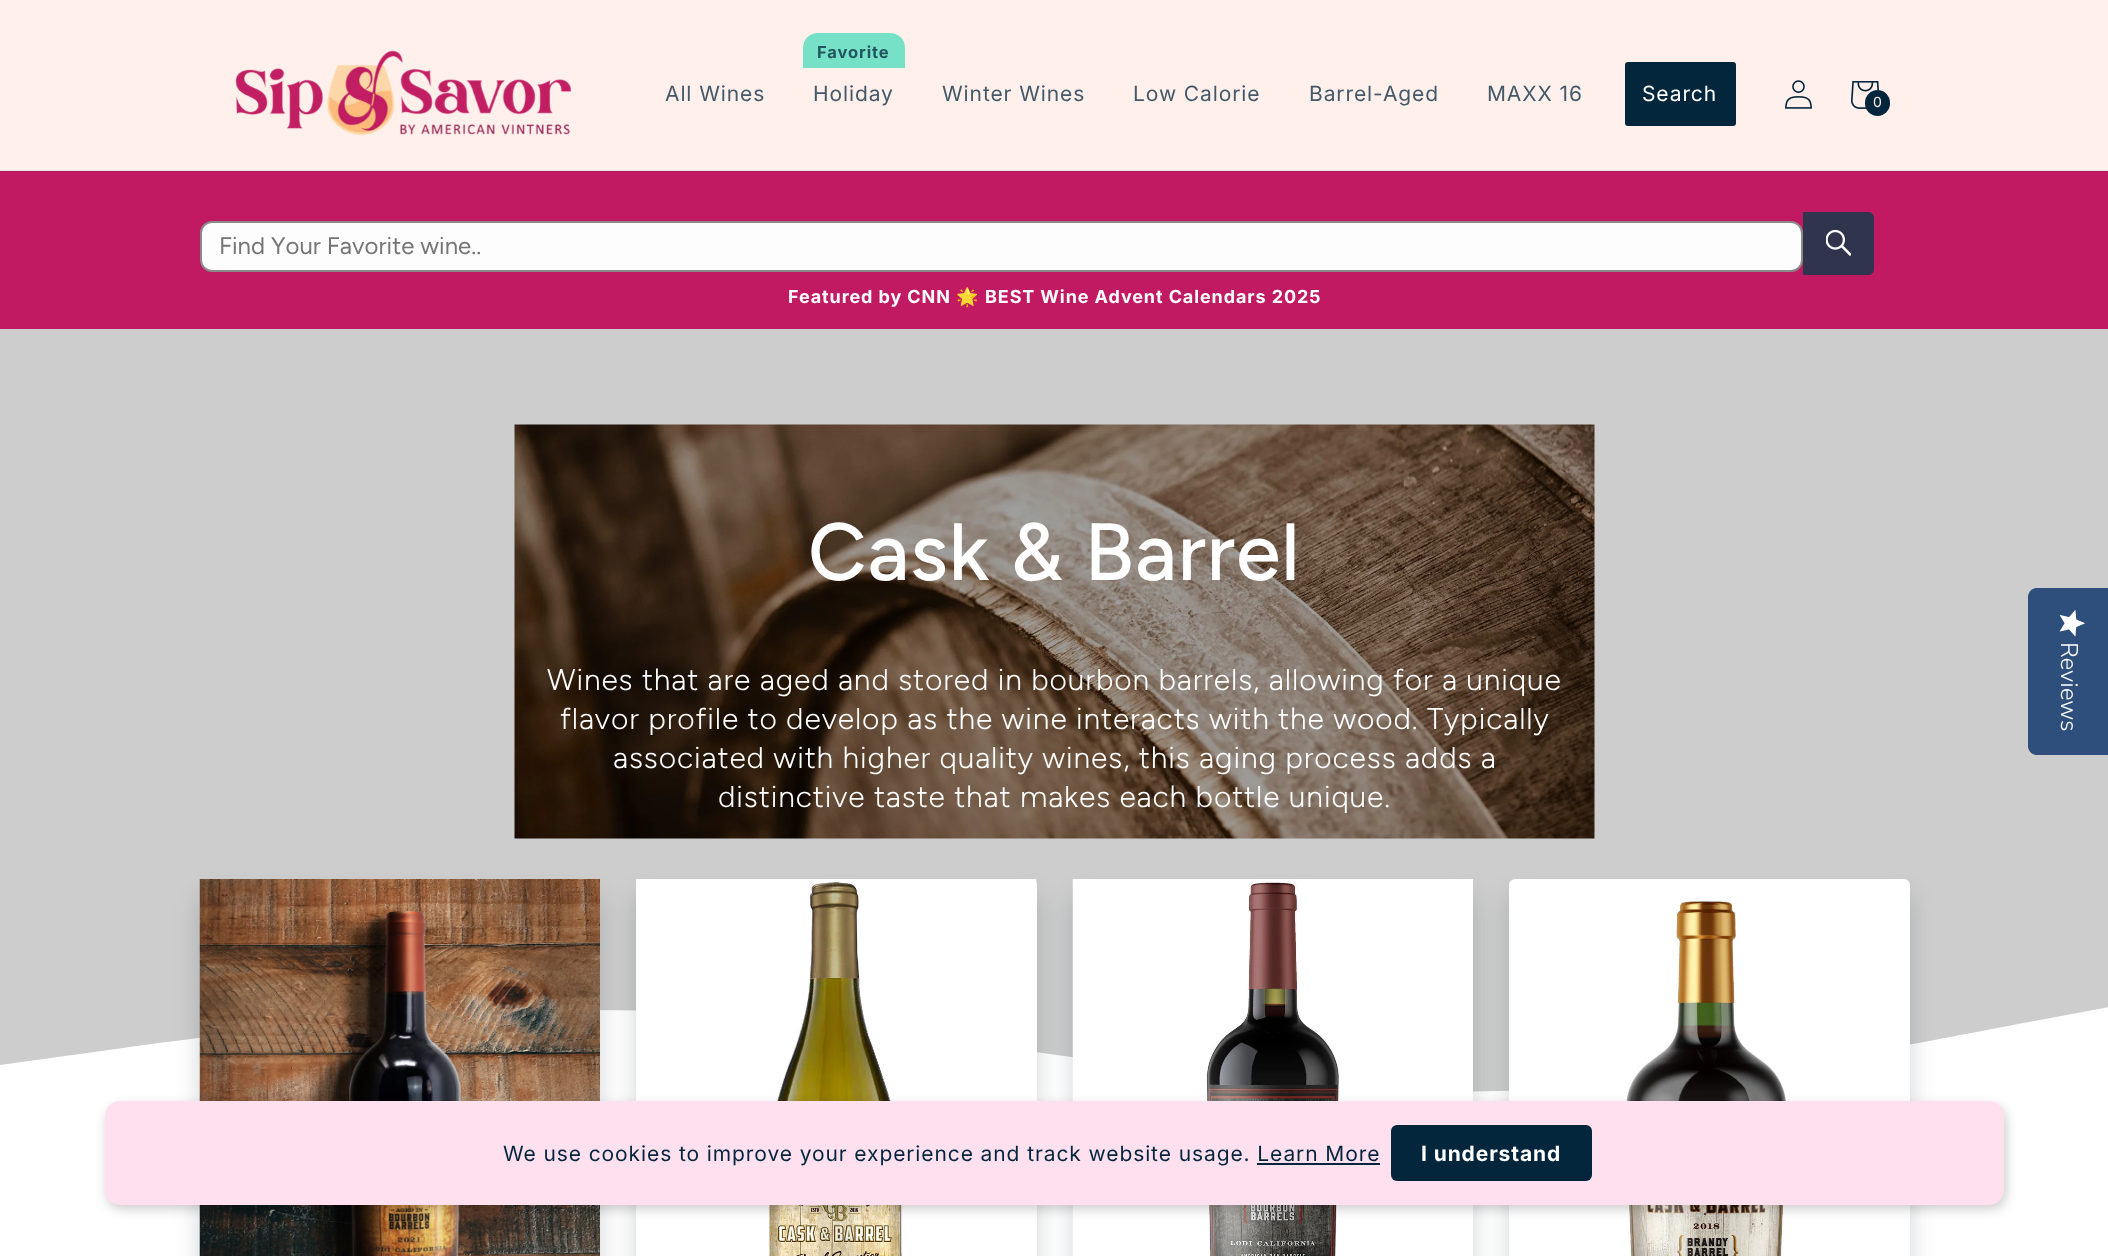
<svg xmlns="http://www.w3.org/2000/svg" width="2108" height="1256">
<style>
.a{font:21px Inter;letter-spacing:0.9px;fill:#435969}
.b{font:bold 16.5px Inter;letter-spacing:0.9px;fill:#215560}
.c{font:21px Inter;letter-spacing:0.9px;fill:#fff}
.d{font:14px Inter;letter-spacing:0.9px;fill:#fff0eb}
.e{font:24px Figtree;fill:#757575}
.f{font:bold 18px Inter;letter-spacing:0.9px;fill:#fff}
.g{font:bold 18px Noto Color Emoji;letter-spacing:0.9px;fill:#fff}
.h{font:500 81px Figtree;letter-spacing:0.9px;fill:#fff}
.i{font:300 30px Figtree;letter-spacing:0.9px;fill:#fff}
.j{font:300 24px Nunito Sans;fill:#fff}
.k{font:21px Inter;letter-spacing:0.9px;fill:#04263d}
.l{font:bold 21px Inter;letter-spacing:0.9px;fill:#fff}
</style>
<rect width="100%" height="100%" fill="#fff"/>
<path fill="#fff0eb" d="M0 0h2108v170H0z"/>
<path fill="#ebe0dd" d="M0 170h2108v1H0z"/>
<image href="1.png" x="235" y="50" width="337" height="86"/>
<path fill="#76e1c7" d="M818 33h72c8.5 0 15 6.5 15 15v20h-102v-20c0-8.5 6.5-15 15-15z"/>
<rect fill="#04263d" x="1625" y="62" width="111" height="64" rx="3"/>
<image href="2.png" x="1785" y="80" width="27" height="29"/>
<image href="3.png" x="1851" y="81" width="28" height="28"/>
<rect fill="#04263d" x="1865" y="90" width="25" height="26" rx="12.5"/>
<path fill="#c21a62" d="M0 172h2108v157H0z"/>
<path fill="#b31b5f" d="M0 171h2108v1H0z"/>
<rect fill="#fdfdfd" stroke="#8a8a8a" stroke-width="2" x="201" y="222" width="1601" height="49" rx="11"/>
<path fill="#30344c" d="M1803 212h65c3.5 0 6 2.5 6 6v51c0 3.5-2.5 6-6 6h-65z"/>
<image href="4.png" x="1826" y="229" width="25" height="27"/>
<path fill="#cdcdcd" d="M0 329h2108v763H0z"/>
<image href="5.png" x="514" y="424" width="1081" height="415"/>
<path fill="#fff" d="M0 1065v78h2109v-136l-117 22c-118 23-352 68-586 62c-234-6-469-65-703-78c-230-13-460 19-580 35z"/>
<rect fill="#222e3633" filter="blur(12px)" x="200" y="897" width="400" height="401" rx="6"/>
<image href="6.png" x="199" y="879" width="401" height="377"/>
<rect fill="#222e3633" filter="blur(12px)" x="636" y="897" width="401" height="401" rx="6"/>
<rect fill="#fff" x="636" y="879" width="401" height="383" rx="6"/>
<image href="7.png" x="636" y="879" width="401" height="377"/>
<rect fill="#222e3633" filter="blur(12px)" x="1073" y="897" width="400" height="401" rx="6"/>
<image href="8.png" x="1072" y="879" width="401" height="377"/>
<rect fill="#222e3633" filter="blur(12px)" x="1509" y="897" width="401" height="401" rx="6"/>
<rect fill="#fff" x="1509" y="879" width="401" height="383" rx="6"/>
<image href="9.png" x="1626" y="901" width="161" height="355"/>
<path fill="#2e4f7c" d="M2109 588v167h-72c-5 0-9-4-9-9v-149c0-5 4-9 9-9z"/>
<image href="10.png" x="2059" y="610" width="26" height="27"/>
<rect fill="#00000033" filter="blur(6px)" x="107" y="1106" width="1899" height="103" rx="15"/>
<rect fill="#ffe0ef" x="105" y="1101" width="1899" height="104" rx="15"/>
<path fill="#04263d" d="M1257 1163h123v2H1257z"/>
<rect fill="#04263d" x="1391" y="1125" width="201" height="56" rx="6"/>
<text class="a" x="665" y="101">All Wines</text>
<text class="b" x="817" y="58">Favorite</text>
<text class="a" x="813" y="101">Holiday</text>
<text class="a" x="942" y="101">Winter Wines</text>
<text class="a" x="1133" y="101">Low Calorie</text>
<text class="a" x="1309" y="101">Barrel-Aged</text>
<text class="a" x="1487" y="101">MAXX 16</text>
<text class="c" x="1642" y="101">Search</text>
<text class="d" x="1873" y="107">0</text>
<text class="e" x="219" y="254">Find Your Favorite wine..</text>
<text class="f" x="788" y="303">Featured by CNN</text>
<text class="g" x="956" y="303">🌟</text>
<text class="f" x="985" y="303">BEST Wine Advent Calendars 2025</text>
<text class="h" x="808" y="580">Cask &amp; Barrel</text>
<text class="i" x="547" y="690">Wines that are aged and stored in bourbon barrels, allowing for a unique</text>
<text class="i" x="560" y="729">flavor profile to develop as the wine interacts with the wood. Typically</text>
<text class="i" x="613" y="768">associated with higher quality wines, this aging process adds a</text>
<text class="i" x="718" y="807">distinctive taste that makes each bottle unique.</text>
<text class="j" x="2061" y="642" transform="rotate(90 2061 642)">Reviews</text>
<text class="k" x="503" y="1161">We use cookies to improve your experience and track website usage. Learn More</text>
<text class="l" x="1421" y="1161">I understand</text>
</svg>
